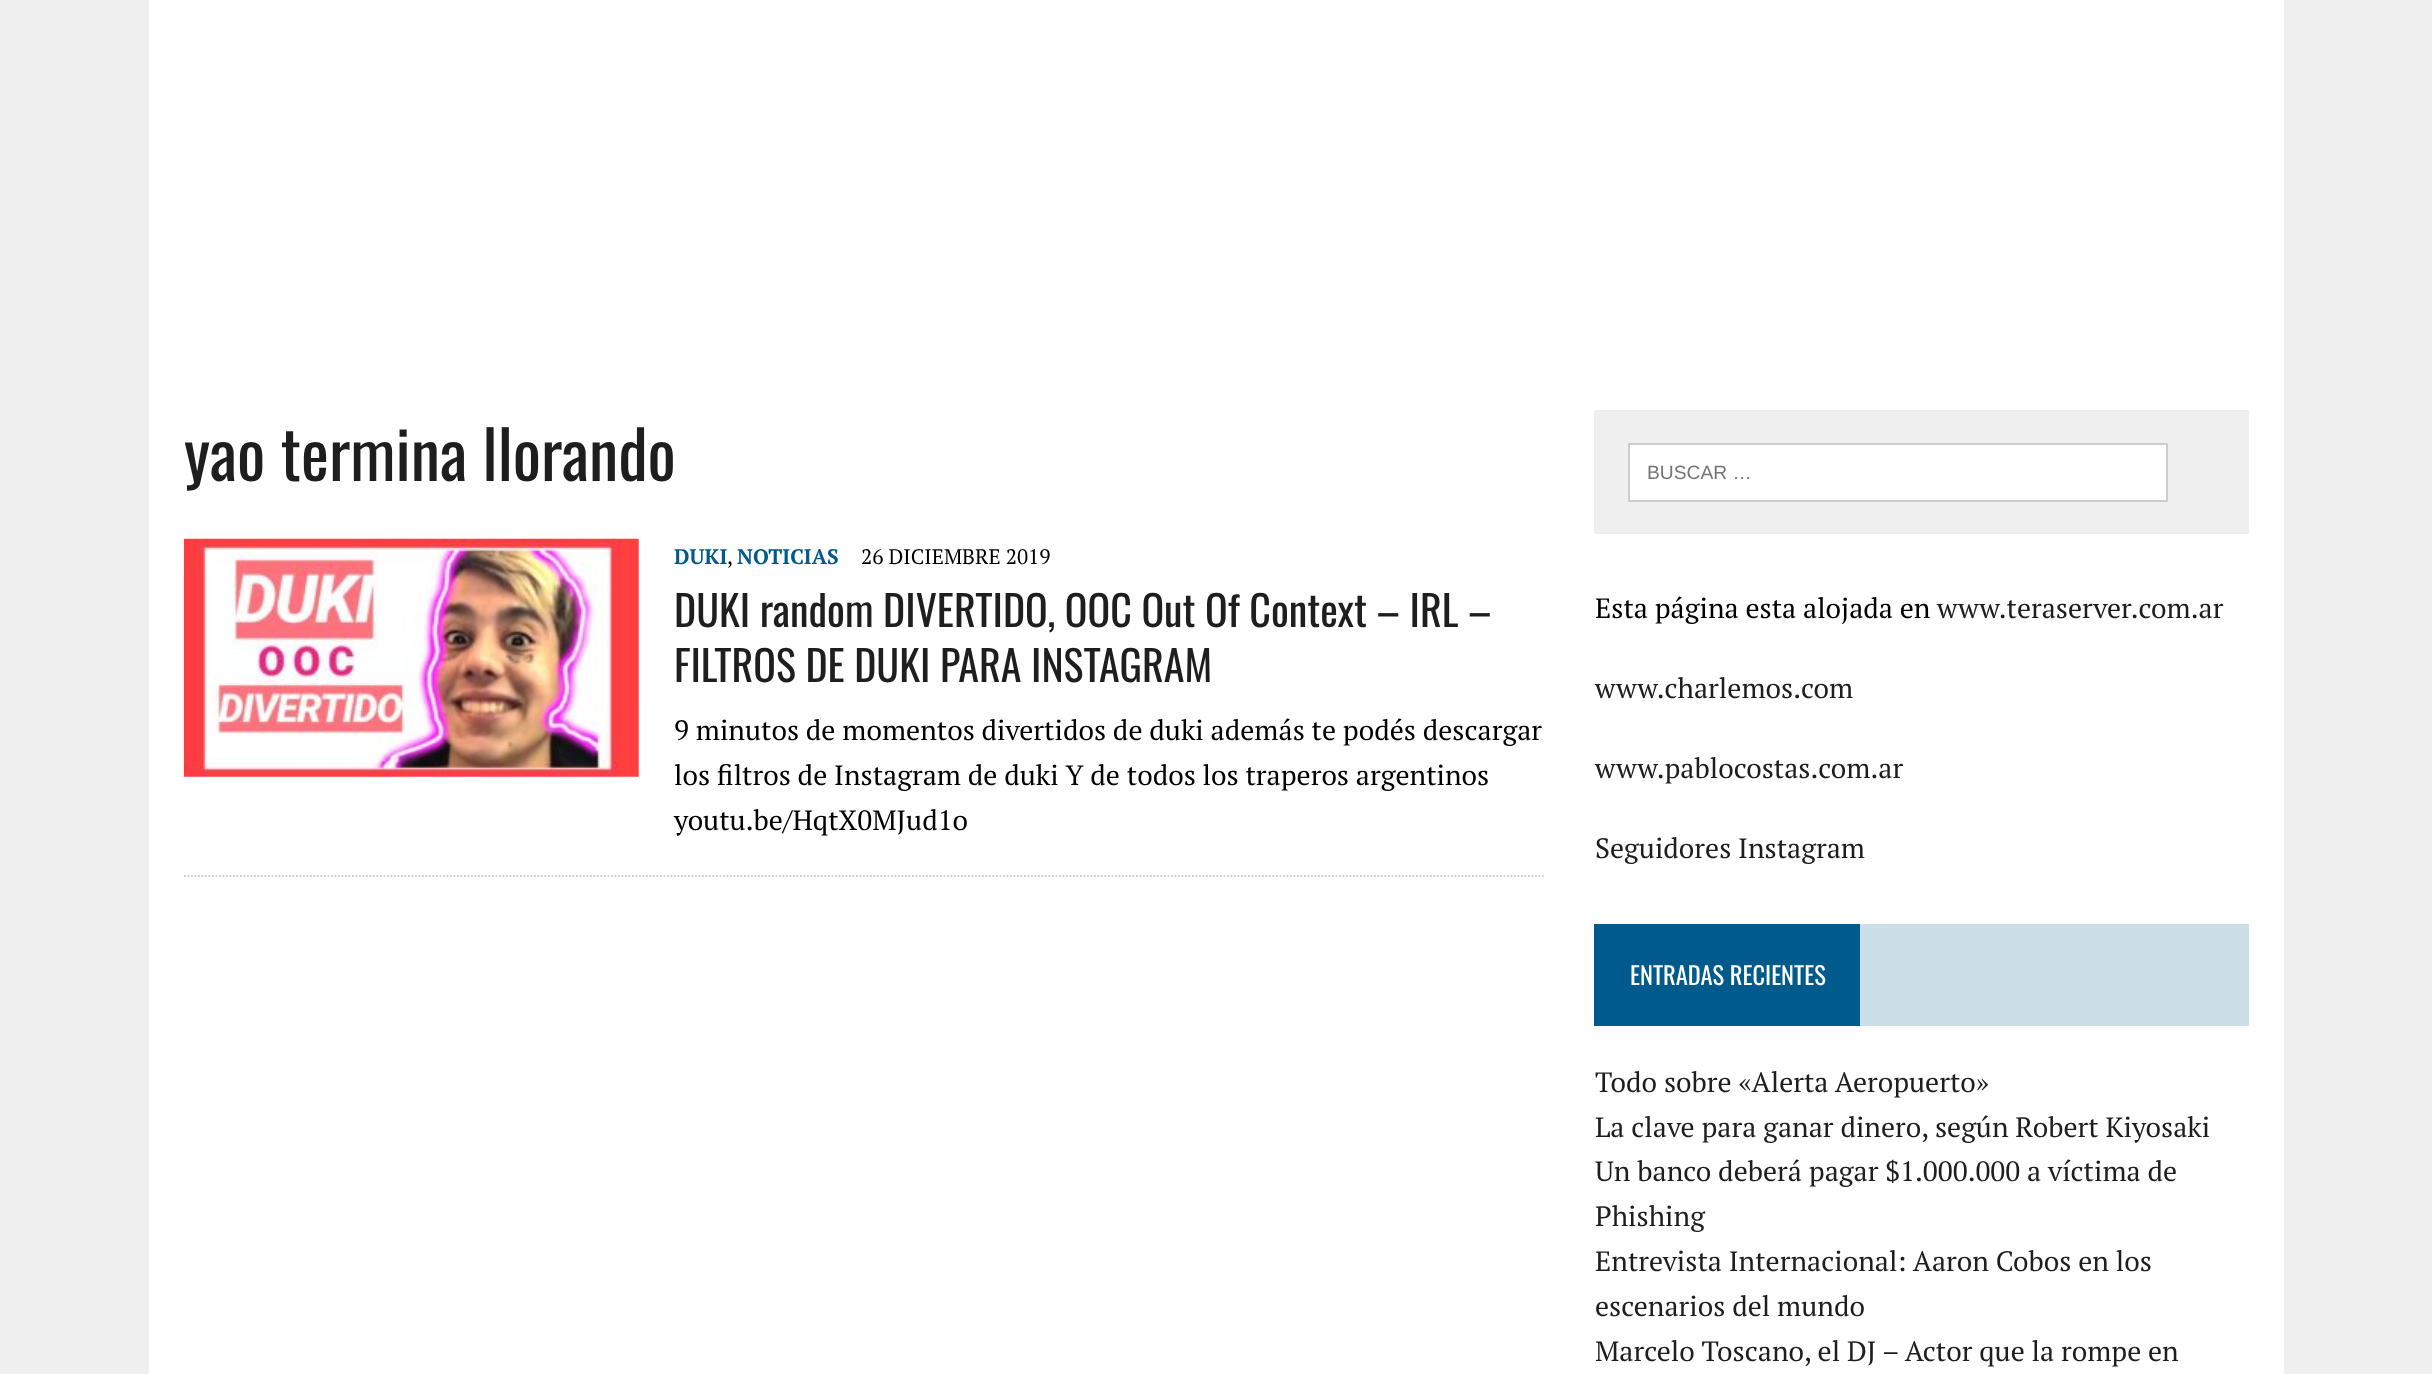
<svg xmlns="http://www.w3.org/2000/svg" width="2432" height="1374">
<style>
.a{font:66.5px Oswald;fill:#1f1e1e}
.b{font:bold 21px PT Serif;fill:#005a8c}
.c{font:21px PT Serif;fill:#000}
.d{font:42px Oswald;fill:#1f1e1e}
.e{font:28px PT Serif;fill:#000}
.f{font:19.25px Liberation Sans;fill:#757575}
.g{font:28px PT Serif;fill:#1f1e1e}
.h{font:24.5px Oswald;fill:#fff}
</style>
<rect width="100%" height="100%" fill="#efefef"/>
<path fill="#fff" d="M149 0h2135v1374H149z"/>
<image href="1.png" x="183" y="538" width="456" height="239"/>
<path fill="none" stroke="#cdcdcd" stroke-width="1.8" stroke-dasharray="1.75 1.75" d="M184 876h1359.5"/>
<path fill="#efefef" d="M1594 410h655v124H1594z"/>
<path fill="#fff" stroke="#cdcdcd" stroke-width="2" d="M1629 444h538v57H1629z"/>
<path fill="#ccdee8" d="M1860 924h389v102H1860z"/>
<path fill="#005a8c" d="M1594 924h266v102H1594z"/>
<text class="a" x="184" y="481">yao termina llorando</text>
<text class="b" x="674" y="564">DUKI</text>
<text class="c" x="727" y="564">,</text>
<text class="b" x="737" y="564">NOTICIAS</text>
<text class="c" x="861" y="564">26 DICIEMBRE 2019</text>
<text class="d" x="674" y="627">DUKI random DIVERTIDO, OOC Out Of Context – IRL –</text>
<text class="d" x="674" y="682">FILTROS DE DUKI PARA INSTAGRAM</text>
<text class="e" x="674" y="740">9 minutos de momentos divertidos de duki además te podés descargar</text>
<text class="e" x="674" y="785">los filtros de Instagram de duki Y de todos los traperos argentinos</text>
<text class="e" x="674" y="830">youtu.be/HqtX0MJud1o</text>
<text class="f" x="1647" y="479">BUSCAR …</text>
<text class="e" x="1595" y="618">Esta página esta alojada en</text>
<text class="g" x="1937" y="618">www.teraserver.com.ar</text>
<text class="g" x="1595" y="698">www.charlemos.com</text>
<text class="g" x="1595" y="778">www.pablocostas.com.ar</text>
<text class="g" x="1595" y="858">Seguidores Instagram</text>
<text class="h" x="1630" y="985">ENTRADAS RECIENTES</text>
<text class="g" x="1595" y="1092">Todo sobre «Alerta Aeropuerto»</text>
<text class="g" x="1595" y="1137">La clave para ganar dinero, según Robert Kiyosaki</text>
<text class="g" x="1595" y="1181">Un banco deberá pagar $1.000.000 a víctima de</text>
<text class="g" x="1595" y="1226">Phishing</text>
<text class="g" x="1595" y="1271">Entrevista Internacional: Aaron Cobos en los</text>
<text class="g" x="1595" y="1316">escenarios del mundo</text>
<text class="g" x="1595" y="1361">Marcelo Toscano, el DJ – Actor que la rompe en</text>
</svg>
